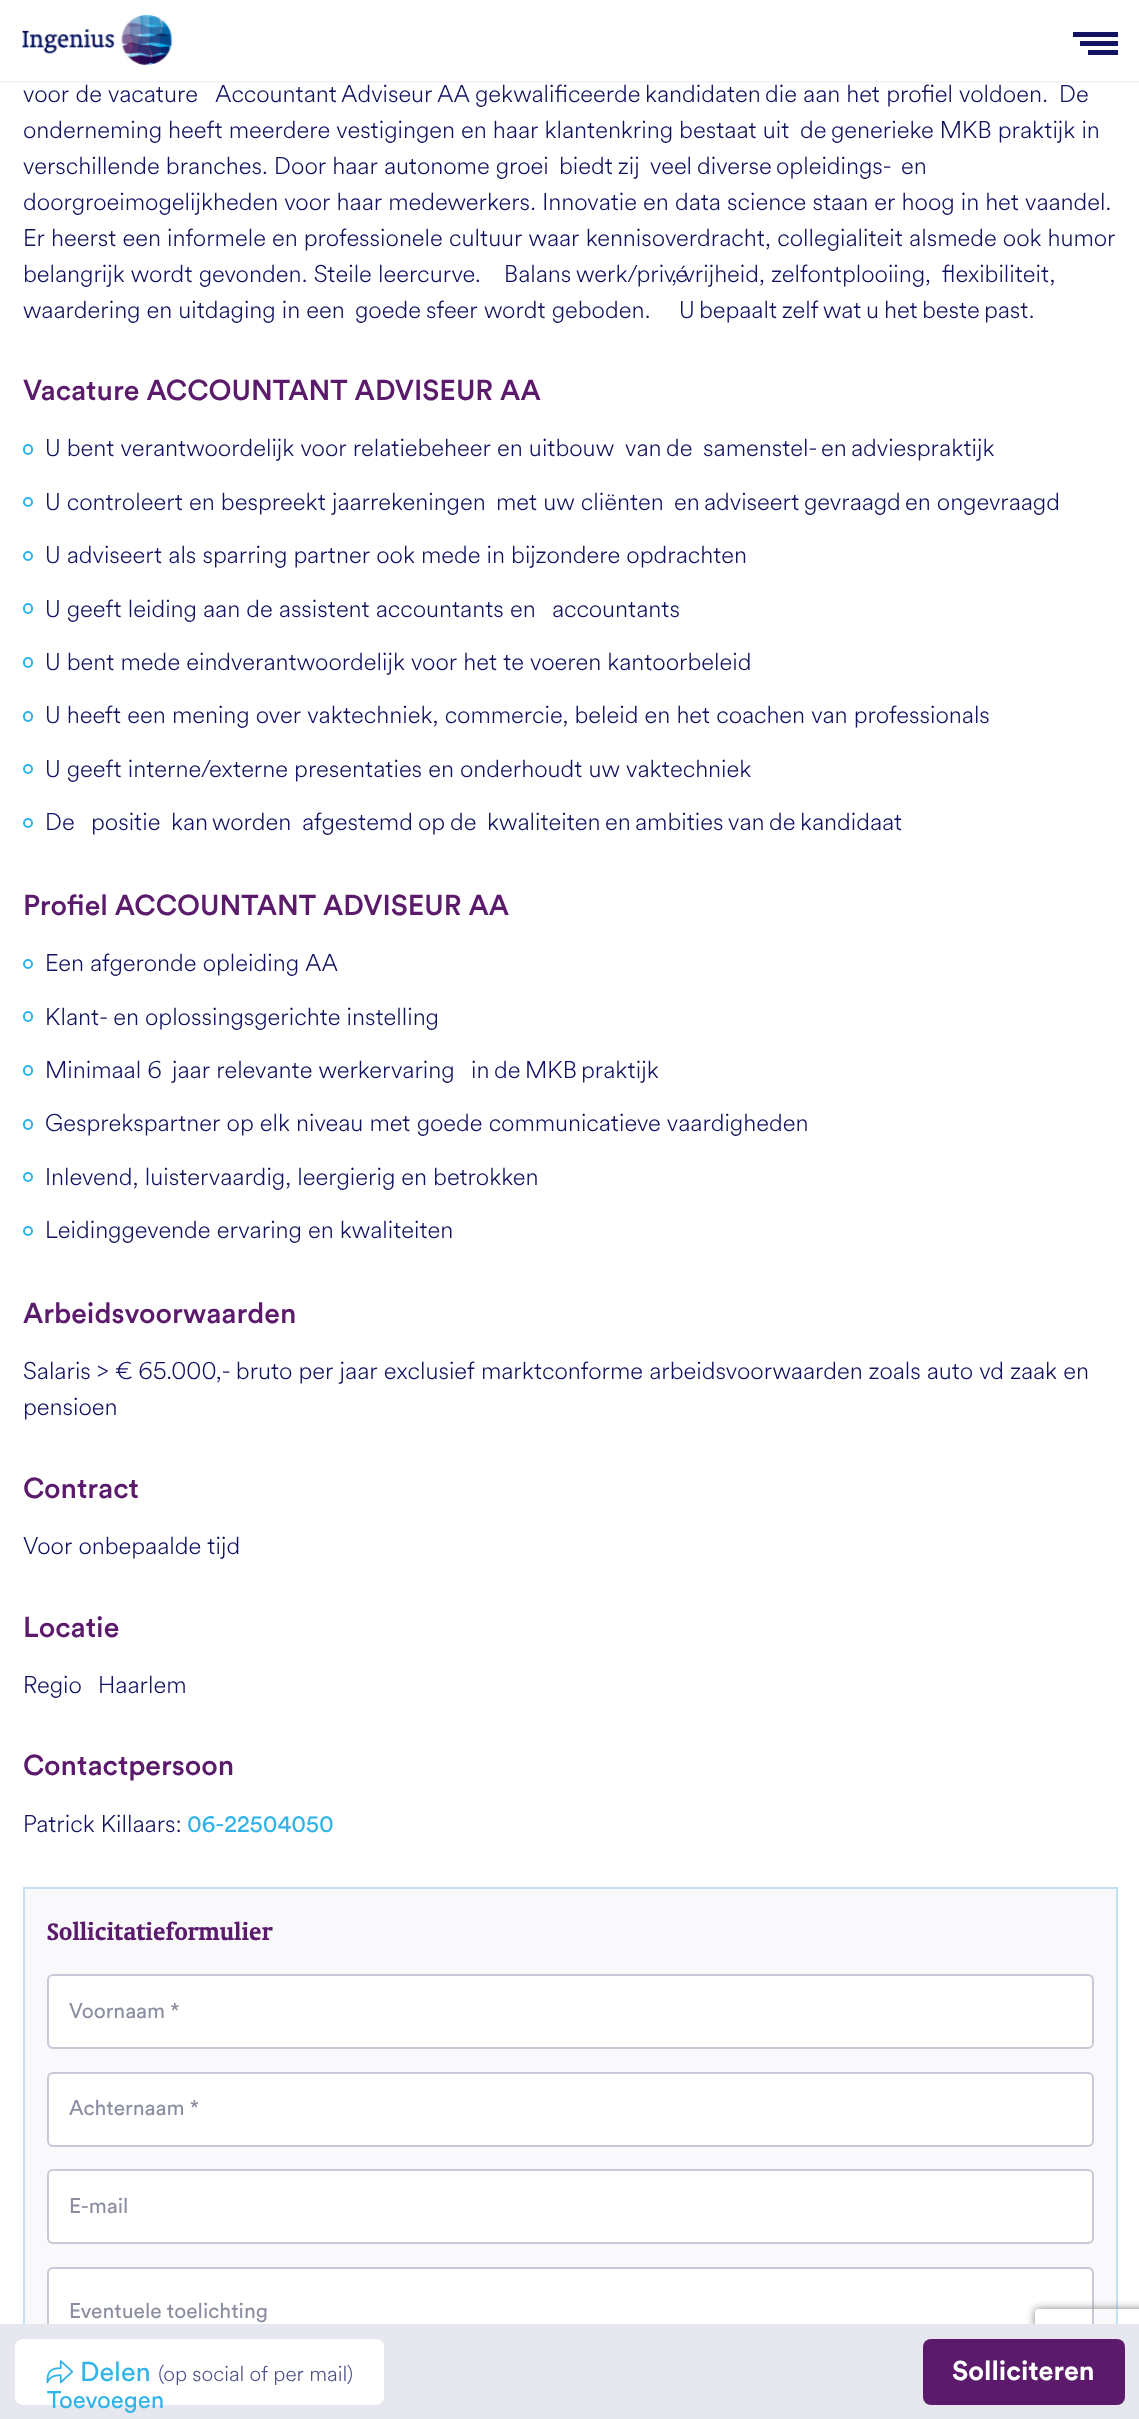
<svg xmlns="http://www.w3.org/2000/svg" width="1139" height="2419">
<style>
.a{font:300 24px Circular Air;fill:#111361}
.b{font:500 28.5px Circular;fill:#5b1a6b}
.c{font:24px Circular;fill:#2fb3e8}
.d{font:bold 27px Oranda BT;fill:#5b1a6b}
.e{font:21px Circular;fill:#8b8ea0}
.f{font:27px Circular;fill:#2fb3e8}
.g{font:300 21px Circular Air;fill:#4c4e88}
.h{font:bold 27px Circular;fill:#fff}
</style>
<defs>
<clipPath id="clip1"><path d="M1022 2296h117v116h-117zm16 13h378c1.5 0 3 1.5 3 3v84c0 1.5-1.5 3-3 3h-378c-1.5 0-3-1.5-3-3v-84c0-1.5 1.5-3 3-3z" clip-rule="evenodd"/></clipPath>
</defs>
<rect width="100%" height="100%" fill="#fff"/>
<path fill="#f4f4f8" d="M0 81h1139v2H0z"/>
<image href="1.png" x="22" y="15" width="151" height="50"/>
<path fill="#111361" d="M1080 41h38v5H1080z"/>
<path fill="#111361" d="M1073 32h45v5H1073z"/>
<path fill="#111361" d="M1088 50h30v5H1088z"/>
<rect fill="none" stroke="#2fb3e8" stroke-width="2" x="24" y="445" width="8" height="9" rx="4"/>
<circle fill="none" stroke="#2fb3e8" stroke-width="2" cx="28" cy="502" r="4"/>
<circle fill="none" stroke="#2fb3e8" stroke-width="2" cx="28" cy="556" r="4"/>
<rect fill="none" stroke="#2fb3e8" stroke-width="2" x="24" y="604" width="8" height="9" rx="4"/>
<rect fill="none" stroke="#2fb3e8" stroke-width="2" x="24" y="658" width="8" height="9" rx="4"/>
<rect fill="none" stroke="#2fb3e8" stroke-width="2" x="24" y="712" width="8" height="9" rx="4"/>
<circle fill="none" stroke="#2fb3e8" stroke-width="2" cx="28" cy="769" r="4"/>
<circle fill="none" stroke="#2fb3e8" stroke-width="2" cx="28" cy="823" r="4"/>
<circle fill="none" stroke="#2fb3e8" stroke-width="2" cx="28" cy="964" r="4"/>
<rect fill="none" stroke="#2fb3e8" stroke-width="2" x="24" y="1012" width="8" height="9" rx="4"/>
<rect fill="none" stroke="#2fb3e8" stroke-width="2" x="24" y="1066" width="8" height="9" rx="4"/>
<rect fill="none" stroke="#2fb3e8" stroke-width="2" x="24" y="1120" width="8" height="9" rx="4"/>
<circle fill="none" stroke="#2fb3e8" stroke-width="2" cx="28" cy="1177" r="4"/>
<circle fill="none" stroke="#2fb3e8" stroke-width="2" cx="28" cy="1231" r="4"/>
<path fill="#f9f9fb" d="M25 1889h1091v435H25z"/>
<path fill="none" stroke="#c1e1f7" stroke-width="2" d="M24 1888h1093v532H24z"/>
<rect fill="#fff" stroke="#c7c9d6" stroke-width="2" x="48" y="1975" width="1045" height="73" rx="5"/>
<rect fill="#fff" stroke="#c7c9d6" stroke-width="2" x="48" y="2073" width="1045" height="73" rx="5"/>
<rect fill="#fff" stroke="#c7c9d6" stroke-width="2" x="48" y="2170" width="1045" height="73" rx="5"/>
<rect fill="#fff" stroke="#c7c9d6" stroke-width="2" x="48" y="2268" width="1045" height="89" rx="5"/>
<g clip-path="url(#clip1)">
<rect fill="#808080" filter="blur(4px)" x="1035" y="2309" width="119" height="90" rx="3"/>
</g>
<path fill="#e6e7ef" d="M0 2324h1139v95H0z"/>
<rect fill="#fff" stroke="#fff" stroke-width="2" x="16" y="2340" width="367" height="64" rx="7"/>
<image href="2.png" x="46" y="2360" width="28" height="24"/>
<rect fill="#5b1a6b" x="923" y="2339" width="202" height="66" rx="8"/>
<text class="a" x="23" y="102">voor de vacature</text>
<text class="a" x="215" y="102">Accountant</text>
<text class="a" x="341" y="102">Adviseur</text>
<text class="a" x="437" y="102">AA</text>
<text class="a" x="475" y="102">gekwalificeerde</text>
<text class="a" x="645" y="102">kandidaten</text>
<text class="a" x="765" y="102">die aan het profiel voldoen.</text>
<text class="a" x="1059" y="102">De</text>
<text class="a" x="23" y="138">onderneming heeft meerdere vestigingen en haar klantenkring bestaat uit</text>
<text class="a" x="800" y="138">de</text>
<text class="a" x="831" y="138">generieke MKB praktijk in</text>
<text class="a" x="23" y="174">verschillende branches. Door haar autonome groei</text>
<text class="a" x="559" y="174">biedt</text>
<text class="a" x="618" y="174">zij</text>
<text class="a" x="650" y="174">veel</text>
<text class="a" x="697" y="174">diverse</text>
<text class="a" x="776" y="174">opleidings-</text>
<text class="a" x="901" y="174">en</text>
<text class="a" x="23" y="210">doorgroeimogelijkheden voor haar medewerkers. Innovatie en data science staan er hoog in het vaandel.</text>
<text class="a" x="23" y="246">Er heerst een informele en professionele cultuur waar kennisoverdracht, collegialiteit alsmede ook humor</text>
<text class="a" x="23" y="282">belangrijk wordt gevonden. Steile leercurve.</text>
<text class="a" x="504" y="282">Balans</text>
<text class="a" x="576" y="282">werk/privé</text>
<text class="a" x="671" y="282">, vrijheid, zelfontplooiing,</text>
<text class="a" x="942" y="282">flexibiliteit,</text>
<text class="a" x="23" y="318">waardering en uitdaging in een</text>
<text class="a" x="355" y="318">goede</text>
<text class="a" x="426" y="318">sfeer wordt geboden.</text>
<text class="a" x="679" y="318">U</text>
<text class="a" x="699" y="318">bepaalt</text>
<text class="a" x="782" y="318">zelf</text>
<text class="a" x="823" y="318">wat</text>
<text class="a" x="866" y="318">u</text>
<text class="a" x="884" y="318">het</text>
<text class="a" x="922" y="318">beste</text>
<text class="a" x="984" y="318">past.</text>
<text class="b" x="23" y="400">Vacature ACCOUNTANT ADVISEUR AA</text>
<text class="a" x="45" y="456">U bent verantwoordelijk voor relatiebeheer en uitbouw</text>
<text class="a" x="625" y="456">van</text>
<text class="a" x="666" y="456">de</text>
<text class="a" x="703" y="456">samenstel-</text>
<text class="a" x="821" y="456">en</text>
<text class="a" x="851" y="456">adviespraktijk</text>
<text class="a" x="45" y="510">U controleert en bespreekt jaarrekeningen</text>
<text class="a" x="496" y="510">met uw cliënten</text>
<text class="a" x="674" y="510">en</text>
<text class="a" x="704" y="510">adviseert</text>
<text class="a" x="804" y="510">gevraagd</text>
<text class="a" x="905" y="510">en ongevraagd</text>
<text class="a" x="45" y="563">U adviseert als sparring partner ook mede in bijzondere opdrachten</text>
<text class="a" x="45" y="617">U geeft leiding aan de assistent accountants en</text>
<text class="a" x="552" y="617">accountants</text>
<text class="a" x="45" y="670">U bent mede eindverantwoordelijk voor het te voeren kantoorbeleid</text>
<text class="a" x="45" y="723">U heeft een mening over vaktechniek, commercie, beleid en het coachen van professionals</text>
<text class="a" x="45" y="777">U geeft interne/externe presentaties en onderhoudt uw vaktechniek</text>
<text class="a" x="45" y="830">De</text>
<text class="a" x="91" y="830">positie</text>
<text class="a" x="171" y="830">kan</text>
<text class="a" x="212" y="830">worden</text>
<text class="a" x="302" y="830">afgestemd</text>
<text class="a" x="418" y="830">op</text>
<text class="a" x="450" y="830">de</text>
<text class="a" x="487" y="830">kwaliteiten</text>
<text class="a" x="605" y="830">en</text>
<text class="a" x="635" y="830">ambities</text>
<text class="a" x="728" y="830">van</text>
<text class="a" x="769" y="830">de</text>
<text class="a" x="800" y="830">kandidaat</text>
<text class="b" x="23" y="915">Profiel ACCOUNTANT ADVISEUR AA</text>
<text class="a" x="45" y="971">Een afgeronde opleiding AA</text>
<text class="a" x="45" y="1025">Klant- en oplossingsgerichte instelling</text>
<text class="a" x="45" y="1078">Minimaal 6</text>
<text class="a" x="172" y="1078">jaar relevante werkervaring</text>
<text class="a" x="471" y="1078">in</text>
<text class="a" x="494" y="1078">de</text>
<text class="a" x="525" y="1078">MKB</text>
<text class="a" x="581" y="1078">praktijk</text>
<text class="a" x="45" y="1131">Gesprekspartner op elk niveau met goede communicatieve vaardigheden</text>
<text class="a" x="45" y="1185">Inlevend, luistervaardig, leergierig en betrokken</text>
<text class="a" x="45" y="1238">Leidinggevende ervaring en kwaliteiten</text>
<text class="b" x="23" y="1323">Arbeidsvoorwaarden</text>
<text class="a" x="23" y="1379">Salaris &gt; € 65.000,- bruto per jaar exclusief marktconforme arbeidsvoorwaarden zoals auto vd zaak en</text>
<text class="a" x="23" y="1415">pensioen</text>
<text class="b" x="23" y="1498">Contract</text>
<text class="a" x="23" y="1554">Voor onbepaalde tijd</text>
<text class="b" x="23" y="1637">Locatie</text>
<text class="a" x="23" y="1693">Regio</text>
<text class="a" x="98" y="1693">Haarlem</text>
<text class="b" x="23" y="1775">Contactpersoon</text>
<text class="a" x="23" y="1832">Patrick Killaars:</text>
<text class="c" x="187" y="1832">06-22504050</text>
<text class="d" x="47" y="1940">Sollicitatieformulier</text>
<text class="e" x="69" y="2018">Voornaam *</text>
<text class="e" x="69" y="2115">Achternaam *</text>
<text class="e" x="69" y="2213">E-mail</text>
<text class="e" x="69" y="2318">Eventuele toelichting</text>
<text class="c" x="47" y="2408">Toevoegen</text>
<text class="f" x="80" y="2381">Delen</text>
<text class="g" x="158" y="2381">(op social of per mail)</text>
<text class="h" x="952" y="2380">Solliciteren</text>
</svg>
